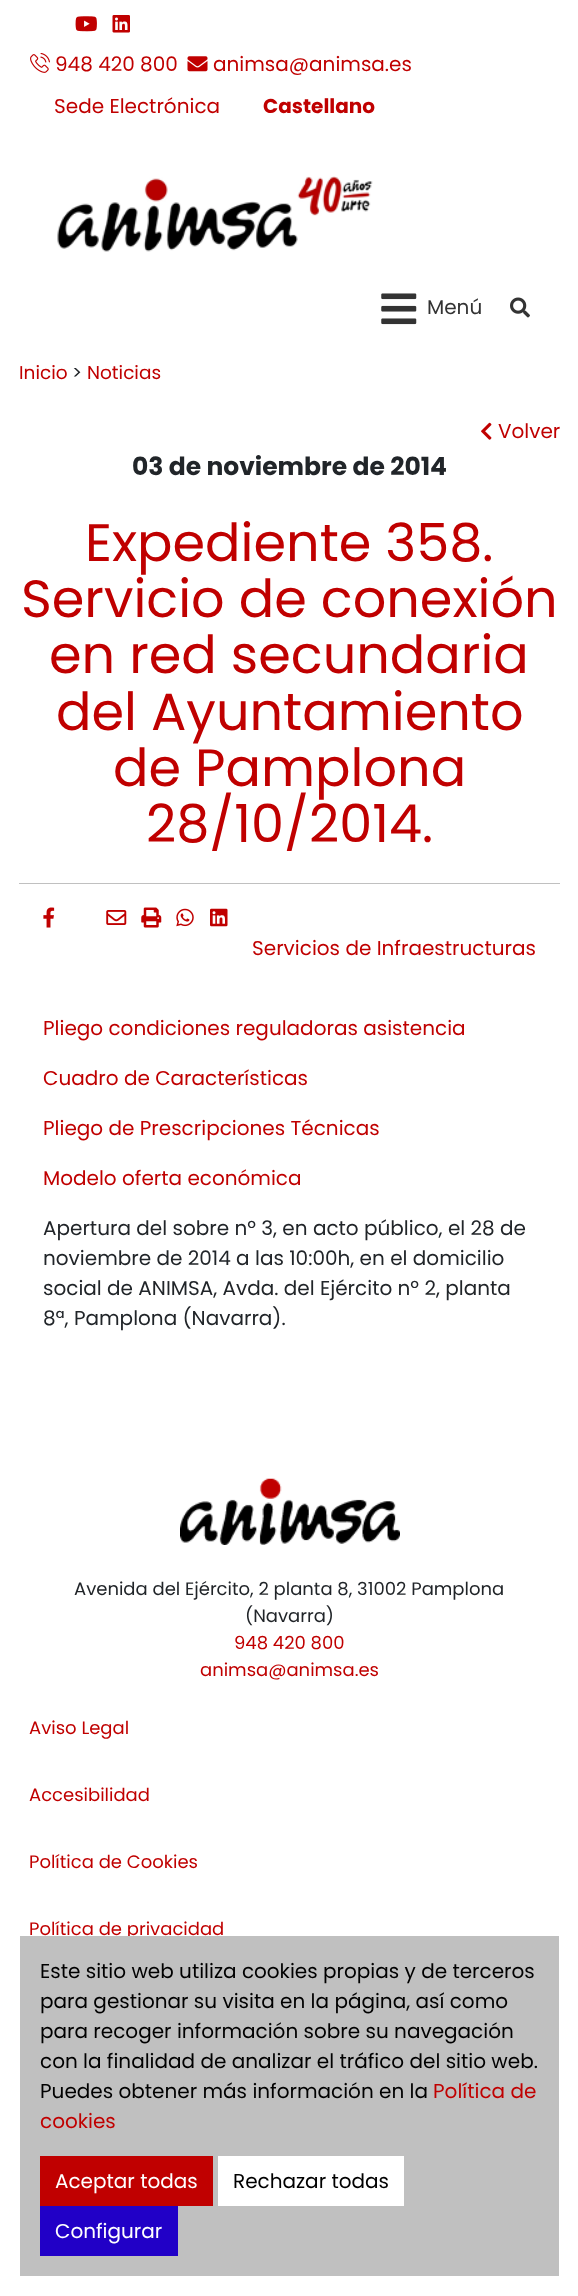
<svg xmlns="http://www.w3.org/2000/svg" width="578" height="2296">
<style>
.a{font:20px Poppins;fill:#c00000}
.b{font:bold 20px Poppins;fill:#c00000}
.c{font:20px Poppins;fill:#333}
.d{font:18.5px Poppins;fill:#c00000}
.e{font:18.5px Poppins;fill:#212529}
.f{font:bold 25px Poppins;fill:#212529}
.g{font:52.5px Poppins;fill:#c00000}
.h{font:20px Poppins;fill:#212529}
.i{font:18px Poppins;fill:#212529}
.j{font:18px Poppins;fill:#c00000}
.k{font:20px Poppins;fill:#000}
.l{font:20px Poppins;fill:#fff}
</style>
<rect width="100%" height="100%" fill="#fff"/>
<image href="1.png" x="75" y="16" width="22" height="16"/>
<image href="2.png" x="112" y="15" width="18" height="18"/>
<image href="3.png" x="30" y="53" width="20" height="20"/>
<image href="4.png" x="187" y="56" width="21" height="16"/>
<image href="5.png" x="57" y="176" width="316" height="76"/>
<image href="6.png" x="381" y="293" width="36" height="32"/>
<image href="7.png" x="510" y="297" width="20" height="21"/>
<image href="8.png" x="481" y="422" width="11" height="18"/>
<path fill="#c0c0c0" d="M19 883h541v1H19z"/>
<image href="9.png" x="43" y="907" width="12" height="21"/>
<image href="10.png" x="106" y="910" width="21" height="15"/>
<image href="11.png" x="141" y="907" width="21" height="21"/>
<image href="12.png" x="176" y="908" width="18" height="19"/>
<image href="13.png" x="210" y="908" width="18" height="19"/>
<image href="14.png" x="180" y="1478" width="220" height="67"/>
<text class="a" x="55" y="71">948 420 800</text>
<text class="a" x="213" y="71">animsa@animsa.es</text>
<text class="a" x="54" y="113">Sede Electrónica</text>
<text class="b" x="263" y="113">Castellano</text>
<text class="c" x="427" y="314">Menú</text>
<text class="d" x="19" y="379">Inicio</text>
<text class="e" x="72" y="379">&gt;</text>
<text class="d" x="87" y="379">Noticias</text>
<text class="a" x="498" y="438">Volver</text>
<text class="f" x="132" y="475">03 de noviembre de 2014</text>
<text class="g" x="85" y="561">Expediente 358.</text>
<text class="g" x="21" y="617">Servicio de conexión</text>
<text class="g" x="49" y="673">en red secundaria</text>
<text class="g" x="56" y="730">del Ayuntamiento</text>
<text class="g" x="113" y="786">de Pamplona</text>
<text class="g" x="146" y="842">28/10/2014.</text>
<text class="a" x="252" y="955">Servicios de Infraestructuras</text>
<text class="a" x="43" y="1035">Pliego condiciones reguladoras asistencia</text>
<text class="a" x="43" y="1085">Cuadro de Características</text>
<text class="a" x="43" y="1135">Pliego de Prescripciones Técnicas</text>
<text class="a" x="43" y="1185">Modelo oferta económica</text>
<text class="h" x="43" y="1235">Apertura del sobre nº 3, en acto público, el 28 de</text>
<text class="h" x="43" y="1265">noviembre de 2014 a las 10:00h, en el domicilio</text>
<text class="h" x="43" y="1295">social de ANIMSA, Avda. del Ejército nº 2, planta</text>
<text class="h" x="43" y="1325">8ª, Pamplona (Navarra).</text>
<text class="i" x="74" y="1595">Avenida del Ejército, 2 planta 8, 31002 Pamplona</text>
<text class="i" x="245" y="1622">(Navarra)</text>
<text class="j" x="234" y="1649">948 420 800</text>
<text class="j" x="200" y="1676">animsa@animsa.es</text>
<text class="j" x="29" y="1734">Aviso Legal</text>
<text class="j" x="29" y="1801">Accesibilidad</text>
<text class="j" x="29" y="1868">Política de Cookies</text>
<text class="j" x="29" y="1935">Política de privacidad</text>
<path fill="#c0c0c0" d="M20 1936h539v340H20z"/>
<text class="k" x="40" y="1978">Este sitio web utiliza cookies propias y de terceros</text>
<text class="k" x="40" y="2008">para gestionar su visita en la página, así como</text>
<text class="k" x="40" y="2038">para recoger información sobre su navegación</text>
<text class="k" x="40" y="2068">con la finalidad de analizar el tráfico del sitio web.</text>
<text class="k" x="40" y="2098">Puedes obtener más información en la</text>
<text class="a" x="433" y="2098">Política de</text>
<text class="a" x="40" y="2128">cookies</text>
<path fill="#c00000" d="M40 2156h173v50H40z"/>
<text class="l" x="55" y="2188">Aceptar todas</text>
<path fill="#fff" d="M218 2156h186v50H218z"/>
<text class="k" x="233" y="2188">Rechazar todas</text>
<path fill="#2100c7" d="M40 2206h138v50H40z"/>
<text class="l" x="55" y="2238">Configurar</text>
</svg>
